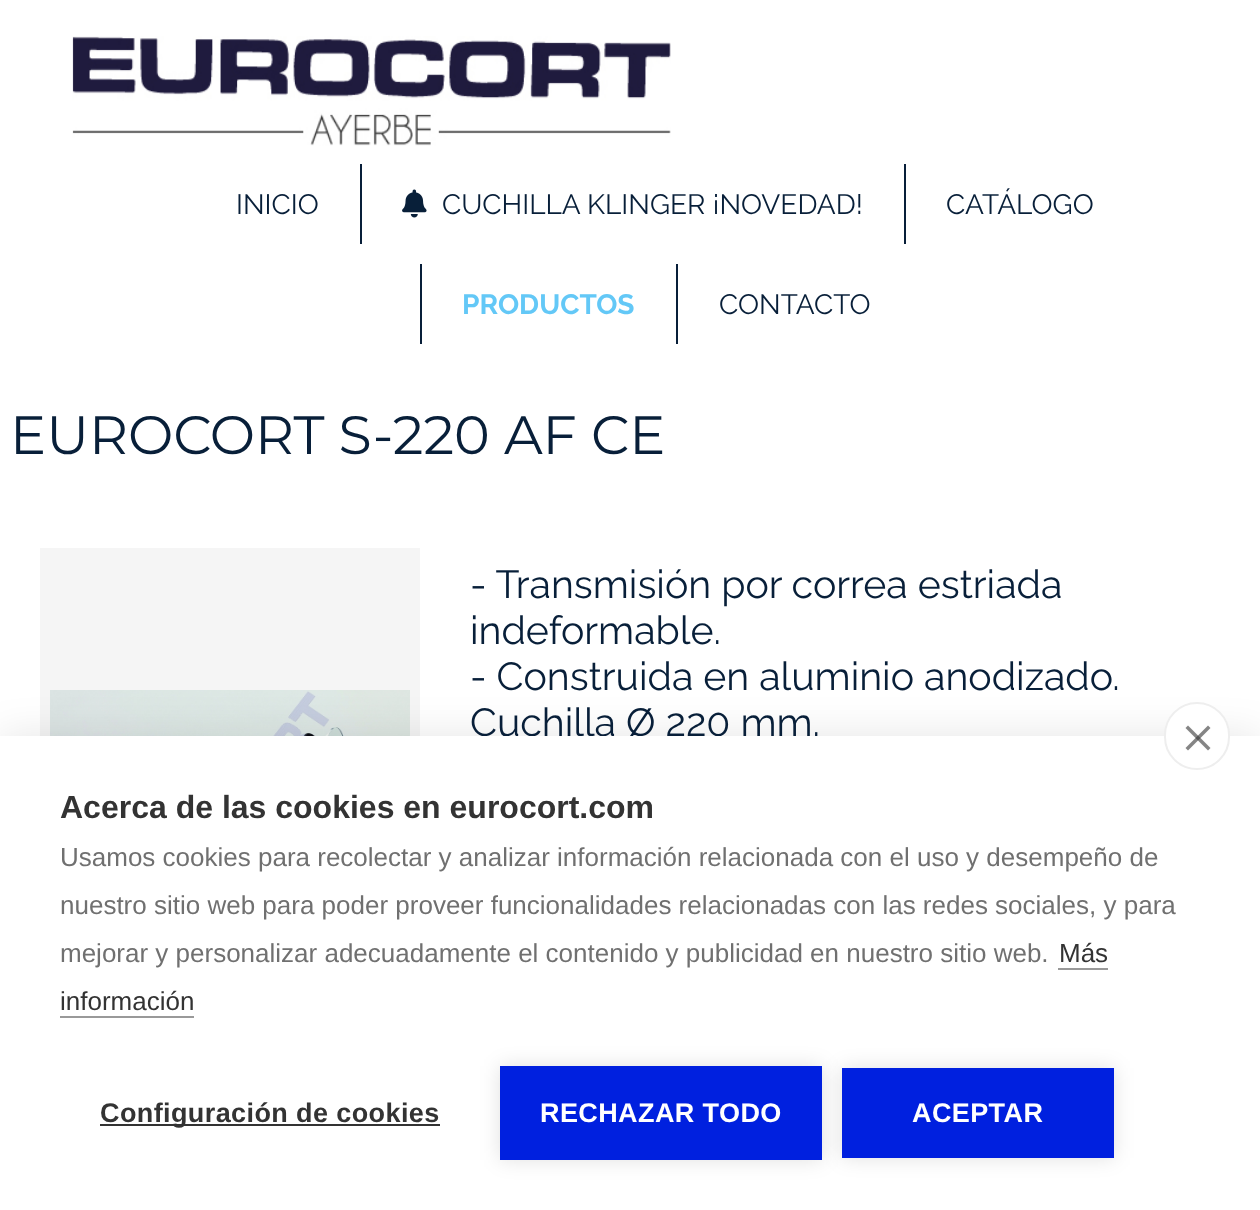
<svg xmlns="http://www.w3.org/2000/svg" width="1260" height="1210">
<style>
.a{font:28px Raleway;fill:#081f39}
.b{font:bold 28px Raleway;fill:#63c8f7}
.c{font:54px Montserrat;fill:#081f39}
.d{font:39.25px Raleway;fill:#081f39}
.e{font:bold 32px Liberation Sans;fill:#333}
.f{font:26px Liberation Sans;fill:#707070}
.g{font:26px Liberation Sans;fill:#333}
.h{font:bold 27px Liberation Sans;letter-spacing:0.4px;fill:#333}
.i{font:bold 27px Liberation Sans;letter-spacing:0.4px;fill:#fff}
</style>
<rect width="100%" height="100%" fill="#fff"/>
<image href="1.png" x="72" y="36" width="599" height="110"/>
<path fill="#081f39" d="M360 164h2v80H360z"/>
<image href="2.png" x="402" y="189" width="25" height="29"/>
<path fill="#081f39" d="M904 164h2v80H904z"/>
<path fill="#081f39" d="M420 264h2v80H420z"/>
<path fill="#081f39" d="M676 264h2v80H676z"/>
<path fill="#f5f5f5" d="M40 548h380v188H40z"/>
<image href="3.png" x="50" y="690" width="360" height="46"/>
<path fill="#0000001a" filter="blur(20px)" d="M0 736h1260v474H0z"/>
<text class="a" x="236" y="214">INICIO</text>
<text class="a" x="442" y="214">CUCHILLA KLINGER ¡NOVEDAD!</text>
<text class="a" x="946" y="214">CATÁLOGO</text>
<text class="b" x="462" y="314">PRODUCTOS</text>
<text class="a" x="719" y="314">CONTACTO</text>
<text class="c" x="10" y="454">EUROCORT S-220 AF CE</text>
<text class="d" x="470" y="598">- Transmisión por correa estriada</text>
<text class="d" x="470" y="644">indeformable.</text>
<text class="d" x="470" y="690">- Construida en aluminio anodizado.</text>
<text class="d" x="470" y="736">Cuchilla Ø 220 mm.</text>
<path fill="#fff" d="M0 736h1260v474H0z"/>
<rect fill="#fff" stroke="#eee" stroke-width="2" x="1165" y="703" width="64" height="66" rx="32"/>
<path fill="#858585" d="M1185.5 748l22.5-22.5l2.5 2.5l-22.5 22.5z"/>
<path fill="#33333399" d="M1188 725.5l22.5 22.5l-2.5 2.5l-22.5-22.5z"/>
<text class="e" x="60" y="818">Acerca de las cookies en eurocort.com</text>
<text class="f" x="60" y="866">Usamos cookies para recolectar y analizar información relacionada con el uso y desempeño de</text>
<text class="f" x="60" y="914">nuestro sitio web para poder proveer funcionalidades relacionadas con las redes sociales, y para</text>
<text class="f" x="60" y="962">mejorar y personalizar adecuadamente el contenido y publicidad en nuestro sitio web.</text>
<text class="g" x="1059" y="962">Más</text>
<path fill="#999" d="M1058 968h50v2H1058z"/>
<text class="g" x="60" y="1010">información</text>
<path fill="#999" d="M60 1016h134v2H60z"/>
<path fill="#333" d="M100 1124h340v2H100z"/>
<text class="h" x="100" y="1122">Configuración de cookies</text>
<path fill="#0000001f" filter="blur(10px)" d="M500 1066h322v94H500z"/>
<path fill="#0020df" d="M500 1066h322v94H500z"/>
<text class="i" x="540" y="1122">RECHAZAR TODO</text>
<path fill="#0000001f" filter="blur(10px)" d="M842 1068h272v90H842z"/>
<path fill="#0020df" d="M842 1068h272v90H842z"/>
<text class="i" x="912" y="1122">ACEPTAR</text>
</svg>
